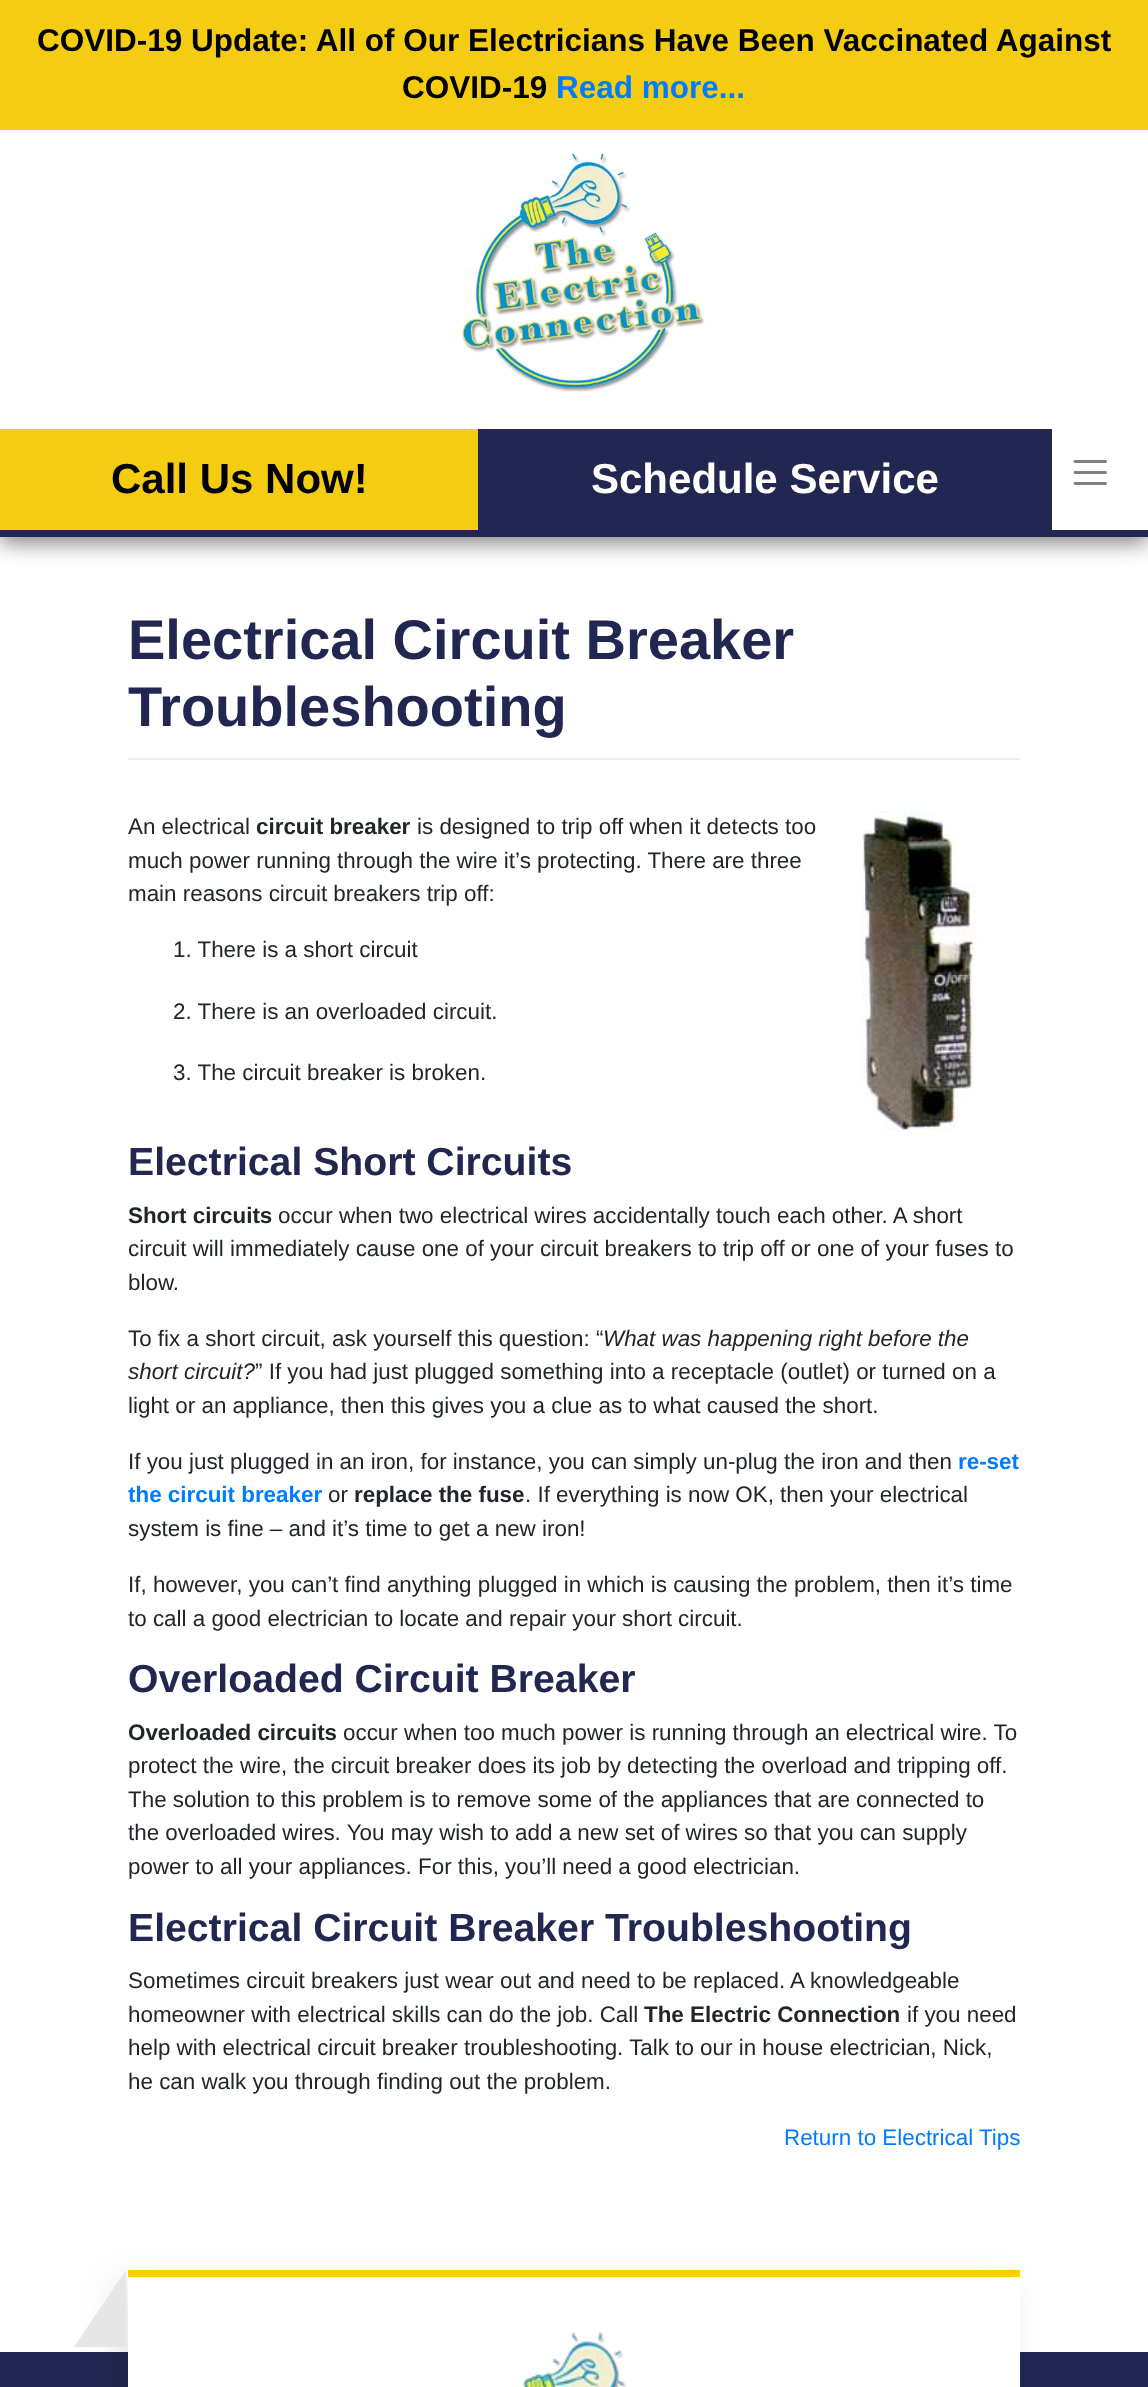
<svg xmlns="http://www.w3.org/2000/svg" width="1148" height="2387">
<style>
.a{font:bold 31.5px Liberation Sans;fill:#000}
.b{font:bold 31.5px Liberation Sans;fill:#007bff}
.c{font:bold 42px Liberation Sans;fill:#000}
.d{font:bold 42px Liberation Sans;fill:#fff}
.e{font:bold 56px Liberation Sans;fill:#222751}
.f{font:22.4px Liberation Sans;fill:#212529}
.g{font:bold 22.4px Liberation Sans;fill:#212529}
.h{font:bold 39.2px Liberation Sans;fill:#222751}
.i{font:italic 22.4px Liberation Sans;fill:#212529}
.j{font:bold 22.4px Liberation Sans;fill:#007bff}
.k{font:22.4px Liberation Sans;fill:#007bff}
</style>
<defs>
<clipPath id="clip1"><path d="M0 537h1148v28H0z"/></clipPath>
</defs>
<rect width="100%" height="100%" fill="#fff"/>
<g clip-path="url(#clip1)">
<path fill="#808080" filter="blur(10.5px)" d="M0 135h1148v408H0z"/>
</g>
<path fill="#f4cc12" d="M0 0h1148v130H0z"/>
<path fill="#222751" d="M0 530h1148v7H0z"/>
<image href="1.png" x="462" y="153" width="243" height="239"/>
<path fill="#f4cc12" d="M0 429h478v101H0z"/>
<path fill="#222751" d="M478 429h574v101H478z"/>
<path fill="none" stroke="#808080" stroke-width="2.8" stroke-linecap="round" d="M1075 461.5h30.5m-30.5 11h30.5m-30.5 11h30.5"/>
<path fill="#eaecef" d="M128 758h892v2H128z"/>
<image href="2.png" x="859" y="810" width="118" height="326"/>
<path fill="#222751" d="M0 2352h1148v35H0z"/>
<path fill="#0000001a" filter="blur(17.5px)" d="M116 2282h892v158H116z"/>
<path fill="#fff" d="M128 2277h892v110H128z"/>
<path fill="#fece05" d="M128 2270h892v7H128z"/>
<image href="3.png" x="523" y="2332" width="104" height="55"/>
<path fill="#e6e6e6" d="M126 2270v77h-52z"/>
<text class="a" x="37" y="51">COVID-19 Update: All of Our Electricians Have Been Vaccinated Against</text>
<text class="a" x="402" y="98">COVID-19</text>
<text class="b" x="556" y="98">Read more...</text>
<text class="c" x="111" y="493">Call Us Now!</text>
<text class="d" x="591" y="493">Schedule Service</text>
<text class="e" x="128" y="659">Electrical Circuit Breaker</text>
<text class="e" x="128" y="726">Troubleshooting</text>
<text class="f" x="128" y="834">An electrical</text>
<text class="g" x="256" y="834">circuit breaker</text>
<text class="f" x="417" y="834">is designed to trip off when it detects too</text>
<text class="f" x="128" y="868">much power running through the wire it’s protecting. There are three</text>
<text class="f" x="128" y="901">main reasons circuit breakers trip off:</text>
<text class="f" x="173" y="957">1. There is a short circuit</text>
<text class="f" x="173" y="1019">2. There is an overloaded circuit.</text>
<text class="f" x="173" y="1080">3. The circuit breaker is broken.</text>
<text class="h" x="128" y="1175">Electrical Short Circuits</text>
<text class="g" x="128" y="1223">Short circuits</text>
<text class="f" x="278" y="1223">occur when two electrical wires accidentally touch each other. A short</text>
<text class="f" x="128" y="1256">circuit will immediately cause one of your circuit breakers to trip off or one of your fuses to</text>
<text class="f" x="128" y="1290">blow.</text>
<text class="f" x="128" y="1346">To fix a short circuit, ask yourself this question: “</text>
<text class="i" x="603" y="1346">What was happening right before the</text>
<text class="i" x="128" y="1379">short circuit?</text>
<text class="f" x="255" y="1379">” If you had just plugged something into a receptacle (outlet) or turned on a</text>
<text class="f" x="128" y="1413">light or an appliance, then this gives you a clue as to what caused the short.</text>
<text class="f" x="128" y="1469">If you just plugged in an iron, for instance, you can simply un-plug the iron and then</text>
<text class="j" x="958" y="1469">re-set</text>
<text class="j" x="128" y="1502">the circuit breaker</text>
<text class="f" x="328" y="1502">or</text>
<text class="g" x="354" y="1502">replace the fuse</text>
<text class="f" x="525" y="1502">. If everything is now OK, then your electrical</text>
<text class="f" x="128" y="1536">system is fine – and it’s time to get a new iron!</text>
<text class="f" x="128" y="1592">If, however, you can’t find anything plugged in which is causing the problem, then it’s time</text>
<text class="f" x="128" y="1626">to call a good electrician to locate and repair your short circuit.</text>
<text class="h" x="128" y="1692">Overloaded Circuit Breaker</text>
<text class="g" x="128" y="1740">Overloaded circuits</text>
<text class="f" x="343" y="1740">occur when too much power is running through an electrical wire. To</text>
<text class="f" x="128" y="1773">protect the wire, the circuit breaker does its job by detecting the overload and tripping off.</text>
<text class="f" x="128" y="1807">The solution to this problem is to remove some of the appliances that are connected to</text>
<text class="f" x="128" y="1840">the overloaded wires. You may wish to add a new set of wires so that you can supply</text>
<text class="f" x="128" y="1874">power to all your appliances. For this, you’ll need a good electrician.</text>
<text class="h" x="128" y="1941">Electrical Circuit Breaker Troubleshooting</text>
<text class="f" x="128" y="1988">Sometimes circuit breakers just wear out and need to be replaced. A knowledgeable</text>
<text class="f" x="128" y="2022">homeowner with electrical skills can do the job. Call</text>
<text class="g" x="644" y="2022">The Electric Connection</text>
<text class="f" x="907" y="2022">if you need</text>
<text class="f" x="128" y="2055">help with electrical circuit breaker troubleshooting. Talk to our in house electrician, Nick,</text>
<text class="f" x="128" y="2089">he can walk you through finding out the problem.</text>
<text class="k" x="784" y="2145">Return to Electrical Tips</text>
</svg>
